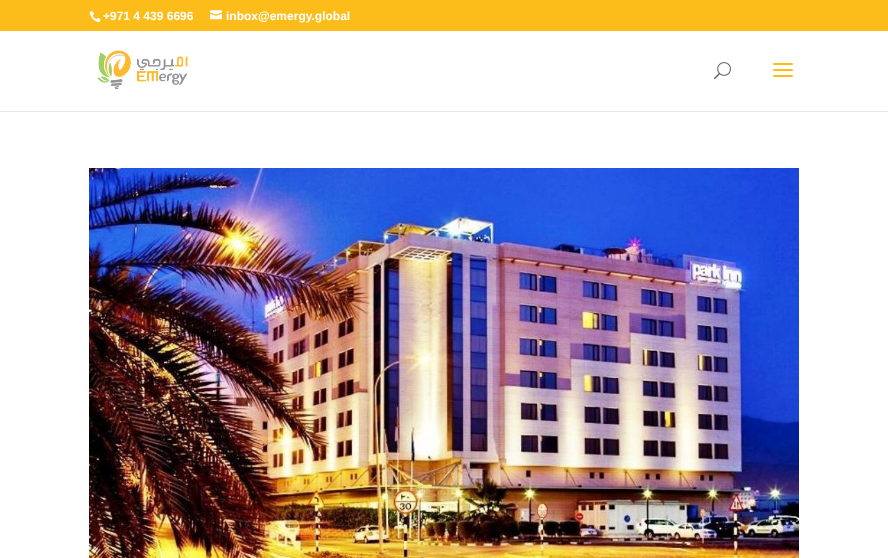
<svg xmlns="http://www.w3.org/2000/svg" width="888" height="558">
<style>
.a{font:bold 12px Liberation Sans;fill:#fff}
</style>
<rect width="100%" height="100%" fill="#fcbd1b"/>
<image href="1.png" x="89" y="11" width="12" height="12"/>
<image href="2.png" x="210" y="10" width="12" height="10"/>
<path fill="#e6e6e6" d="M0 111h888v1H0z"/>
<path fill="#fff" d="M0 31h888v80H0z"/>
<image href="3.png" x="97" y="50" width="91" height="40"/>
<image href="4.png" x="714" y="62" width="17" height="18"/>
<image href="5.png" x="773" y="63" width="20" height="14"/>
<path fill="#fff" d="M0 112h888v446H0z"/>
<image href="6.png" x="89" y="168" width="710" height="390"/>
<text class="a" x="103" y="20">+971 4 439 6696</text>
<text class="a" x="226" y="20">inbox@emergy.global</text>
</svg>
